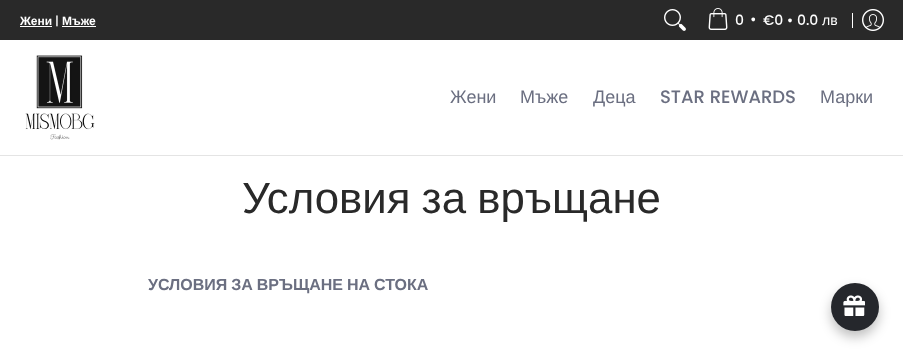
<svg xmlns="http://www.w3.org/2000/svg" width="903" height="355">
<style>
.a{font:bold 12px Liberation Sans;fill:#fff}
.b{font:500 12px Poppins;fill:#fff}
.c{font:500 14px Poppins;fill:#fff}
.d{font:14px Liberation Sans;fill:#fff}
.e{font:18px Liberation Sans;fill:#6b6f81}
.f{font:500 18px Poppins;fill:#6b6f81}
.g{font:43.75px Liberation Sans;fill:#292929}
.h{font:bold 16px Liberation Sans;fill:#6b6f81}
</style>
<rect width="100%" height="100%" fill="#fff"/>
<path fill="#292929" d="M0 0h903v40H0z"/>
<path fill="#fff" d="M20 26h32v1H20z"/>
<path fill="#fff" d="M62 26h34v1H62z"/>
<image href="1.png" x="664" y="9" width="22" height="22"/>
<image href="2.png" x="708" y="8" width="20" height="22"/>
<path fill="#fff" d="M852 13h1v15H852z"/>
<image href="3.png" x="862" y="9" width="22" height="22"/>
<path fill="#e4e4e4" d="M0 155h903v1H0z"/>
<image href="4.png" x="25" y="55" width="70" height="85"/>
<rect fill="#00000040" filter="blur(6px)" x="831" y="289" width="48" height="48" rx="24"/>
<circle fill="#25272c" cx="855" cy="307" r="24"/>
<image href="5.png" x="843" y="295" width="22" height="21"/>
<text class="a" x="20" y="25">Жени</text>
<text class="b" x="55" y="25">|</text>
<text class="a" x="62" y="25">Мъже</text>
<text class="c" x="735" y="25">0</text>
<text class="c" x="750" y="24">•</text>
<text class="c" x="763" y="25">€0 • 0.0</text>
<text class="d" x="822" y="25">лв</text>
<text class="e" x="450" y="103">Жени</text>
<text class="e" x="520" y="103">Мъже</text>
<text class="e" x="593" y="103">Деца</text>
<text class="f" x="660" y="103">STAR REWARDS</text>
<text class="e" x="820" y="103">Марки</text>
<text class="g" x="242" y="213" word-spacing="-1">Условия за връщане</text>
<text class="h" x="148" y="290" word-spacing="-0.5">УСЛОВИЯ ЗА ВРЪЩАНЕ НА СТОКА</text>
</svg>
